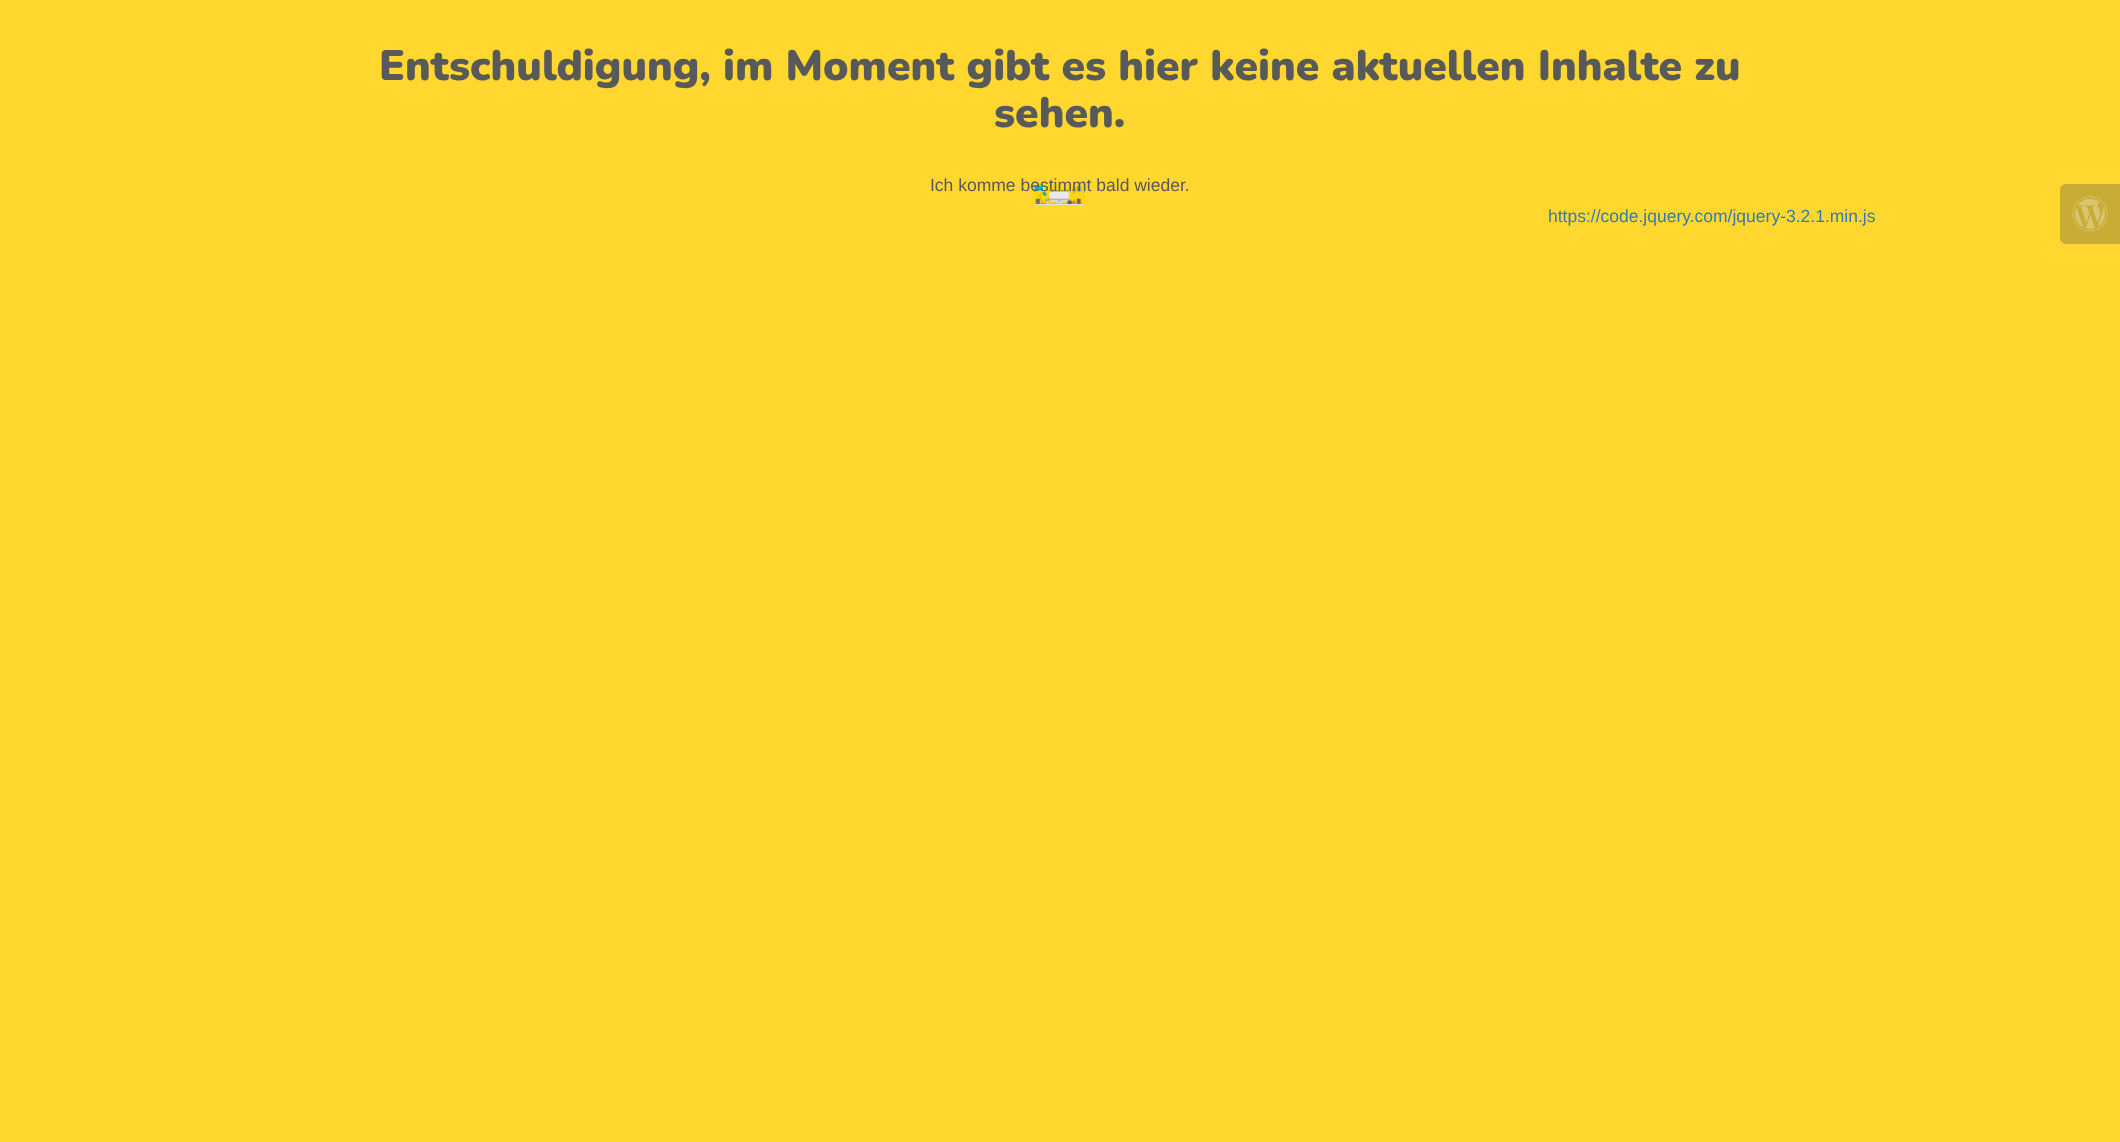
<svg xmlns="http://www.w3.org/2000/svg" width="2120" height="1142">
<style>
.a{font:200 42.5px Nunito;fill:#58595b}
.b{font:17.5px Liberation Sans;fill:#58595b}
.c{font:17.5px Liberation Sans;fill:#337ab7}
</style>
<rect width="100%" height="100%" fill="#ffd72f"/>
<image href="1.png" x="1033" y="185" width="52" height="20"/>
<path fill="#c8ac36" d="M2066 184h54v60h-54c-3.5 0-6-2.5-6-6v-48c0-3.5 2.5-6 6-6z"/>
<image href="2.png" x="2072" y="196" width="36" height="36"/>
<text class="a" x="379" y="80">Entschuldigung, im Moment gibt es hier keine aktuellen Inhalte zu</text>
<text class="a" x="994" y="127">sehen.</text>
<text class="b" x="930" y="191">Ich komme bestimmt bald wieder.</text>
<text class="c" x="1548" y="222">https://code.jquery.com/jquery-3.2.1.min.js</text>
</svg>
